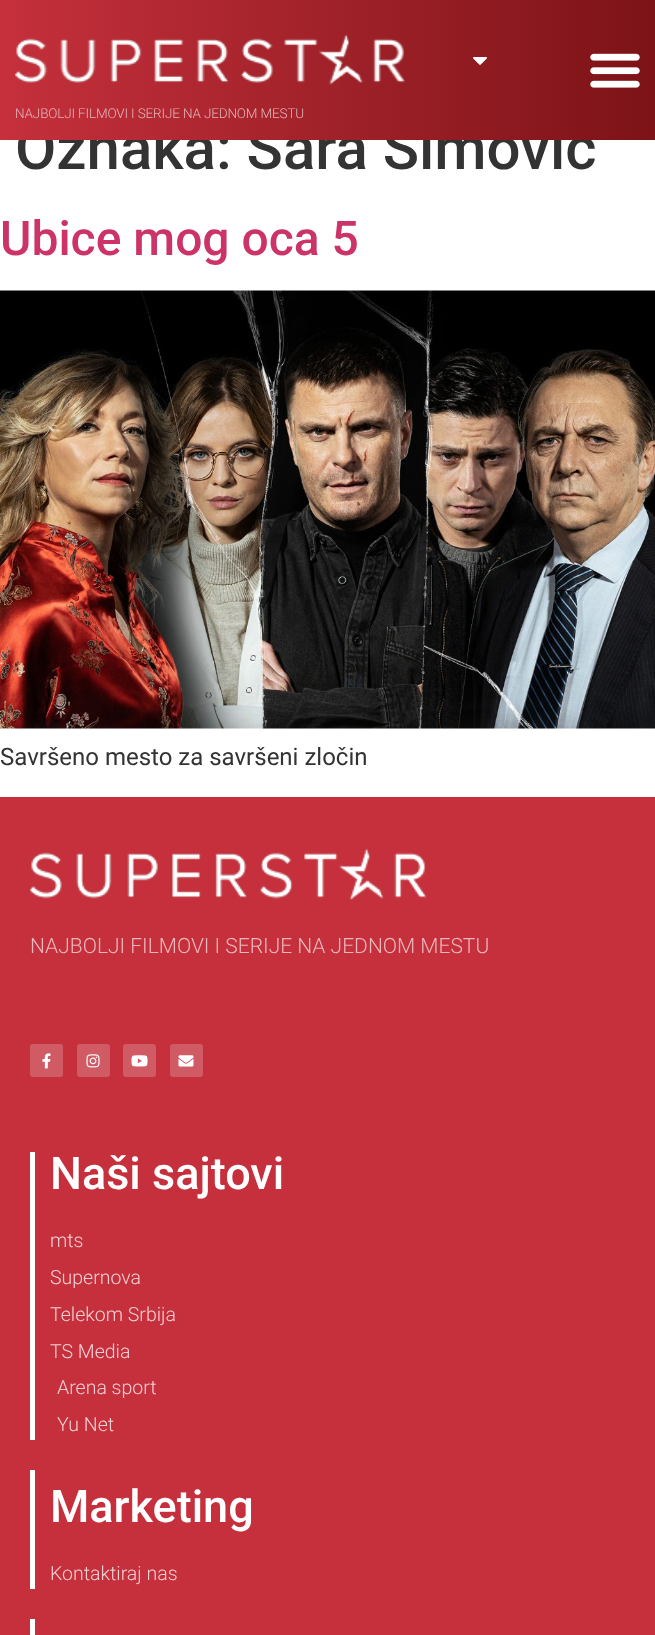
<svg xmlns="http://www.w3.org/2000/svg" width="655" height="1635">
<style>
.a{font:500 60px Roboto;fill:#333}
.b{font:300 13.5px Roboto;letter-spacing:-0.15px;fill:#e4b4b8}
.c{font:500 48px Roboto;fill:#c36}
.d{font:24px Roboto;fill:#333}
.e{font:300 21px Roboto;fill:#ebb7bb}
.f{font:500 45px Roboto;fill:#fff}
.g{font:300 19.5px Roboto;fill:#f2d1d4}
</style>
<defs>
<linearGradient id="g1" gradientUnits="userSpaceOnUse" x1="0" y1="70" x2="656" y2="70"><stop offset="0" stop-color="#c5303c"/><stop offset="1" stop-color="#7c1317"/></linearGradient>
</defs>
<rect width="100%" height="100%" fill="#fff"/>
<image href="4.png" x="0" y="290" width="655" height="439"/>
<path fill="#c5303c" d="M0 797h655v838H0z"/>
<image href="5.png" x="30" y="848" width="397" height="52"/>
<rect fill="#d15b65" x="30" y="1044" width="33" height="33" rx="3"/>
<image href="6.png" x="42" y="1053" width="9" height="16"/>
<rect fill="#d15b65" x="77" y="1044" width="33" height="33" rx="3"/>
<image href="7.png" x="86" y="1054" width="14" height="14"/>
<rect fill="#d15b65" x="123" y="1044" width="33" height="33" rx="3"/>
<image href="8.png" x="131" y="1055" width="17" height="12"/>
<rect fill="#d15b65" x="170" y="1044" width="33" height="33" rx="3"/>
<image href="9.png" x="178" y="1055" width="16" height="12"/>
<path fill="#fff" d="M30 1152h5v288H30z"/>
<path fill="#fff" d="M30 1470h5v119H30z"/>
<path fill="#fff" d="M30 1619h5v16H30z"/>
<text class="a" x="15" y="169">Oznaka: Sara Simović</text>
<path fill="url(#g1)" d="M0 0h655v140H0z"/>
<image href="3.png" x="473" y="57" width="14" height="8"/>
<image href="2.png" x="15" y="34" width="391" height="51"/>
<image href="1.png" x="590" y="53" width="50" height="35"/>
<text class="b" x="15" y="118">NAJBOLJI FILMOVI I SERIJE NA JEDNOM MESTU</text>
<text class="c" x="0" y="255">Ubice mog oca 5</text>
<text class="d" x="0" y="765">Savršeno mesto za savršeni zločin</text>
<text class="e" x="30" y="953">NAJBOLJI FILMOVI I SERIJE NA JEDNOM MESTU</text>
<text class="f" x="50" y="1189">Naši sajtovi</text>
<text class="g" x="50" y="1247">mts</text>
<text class="g" x="50" y="1284">Supernova</text>
<text class="g" x="50" y="1321">Telekom Srbija</text>
<text class="g" x="50" y="1358">TS Media</text>
<text class="g" x="57" y="1394">Arena sport</text>
<text class="g" x="57" y="1431">Yu Net</text>
<text class="f" x="50" y="1522">Marketing</text>
<text class="g" x="50" y="1580">Kontaktiraj nas</text>
</svg>
